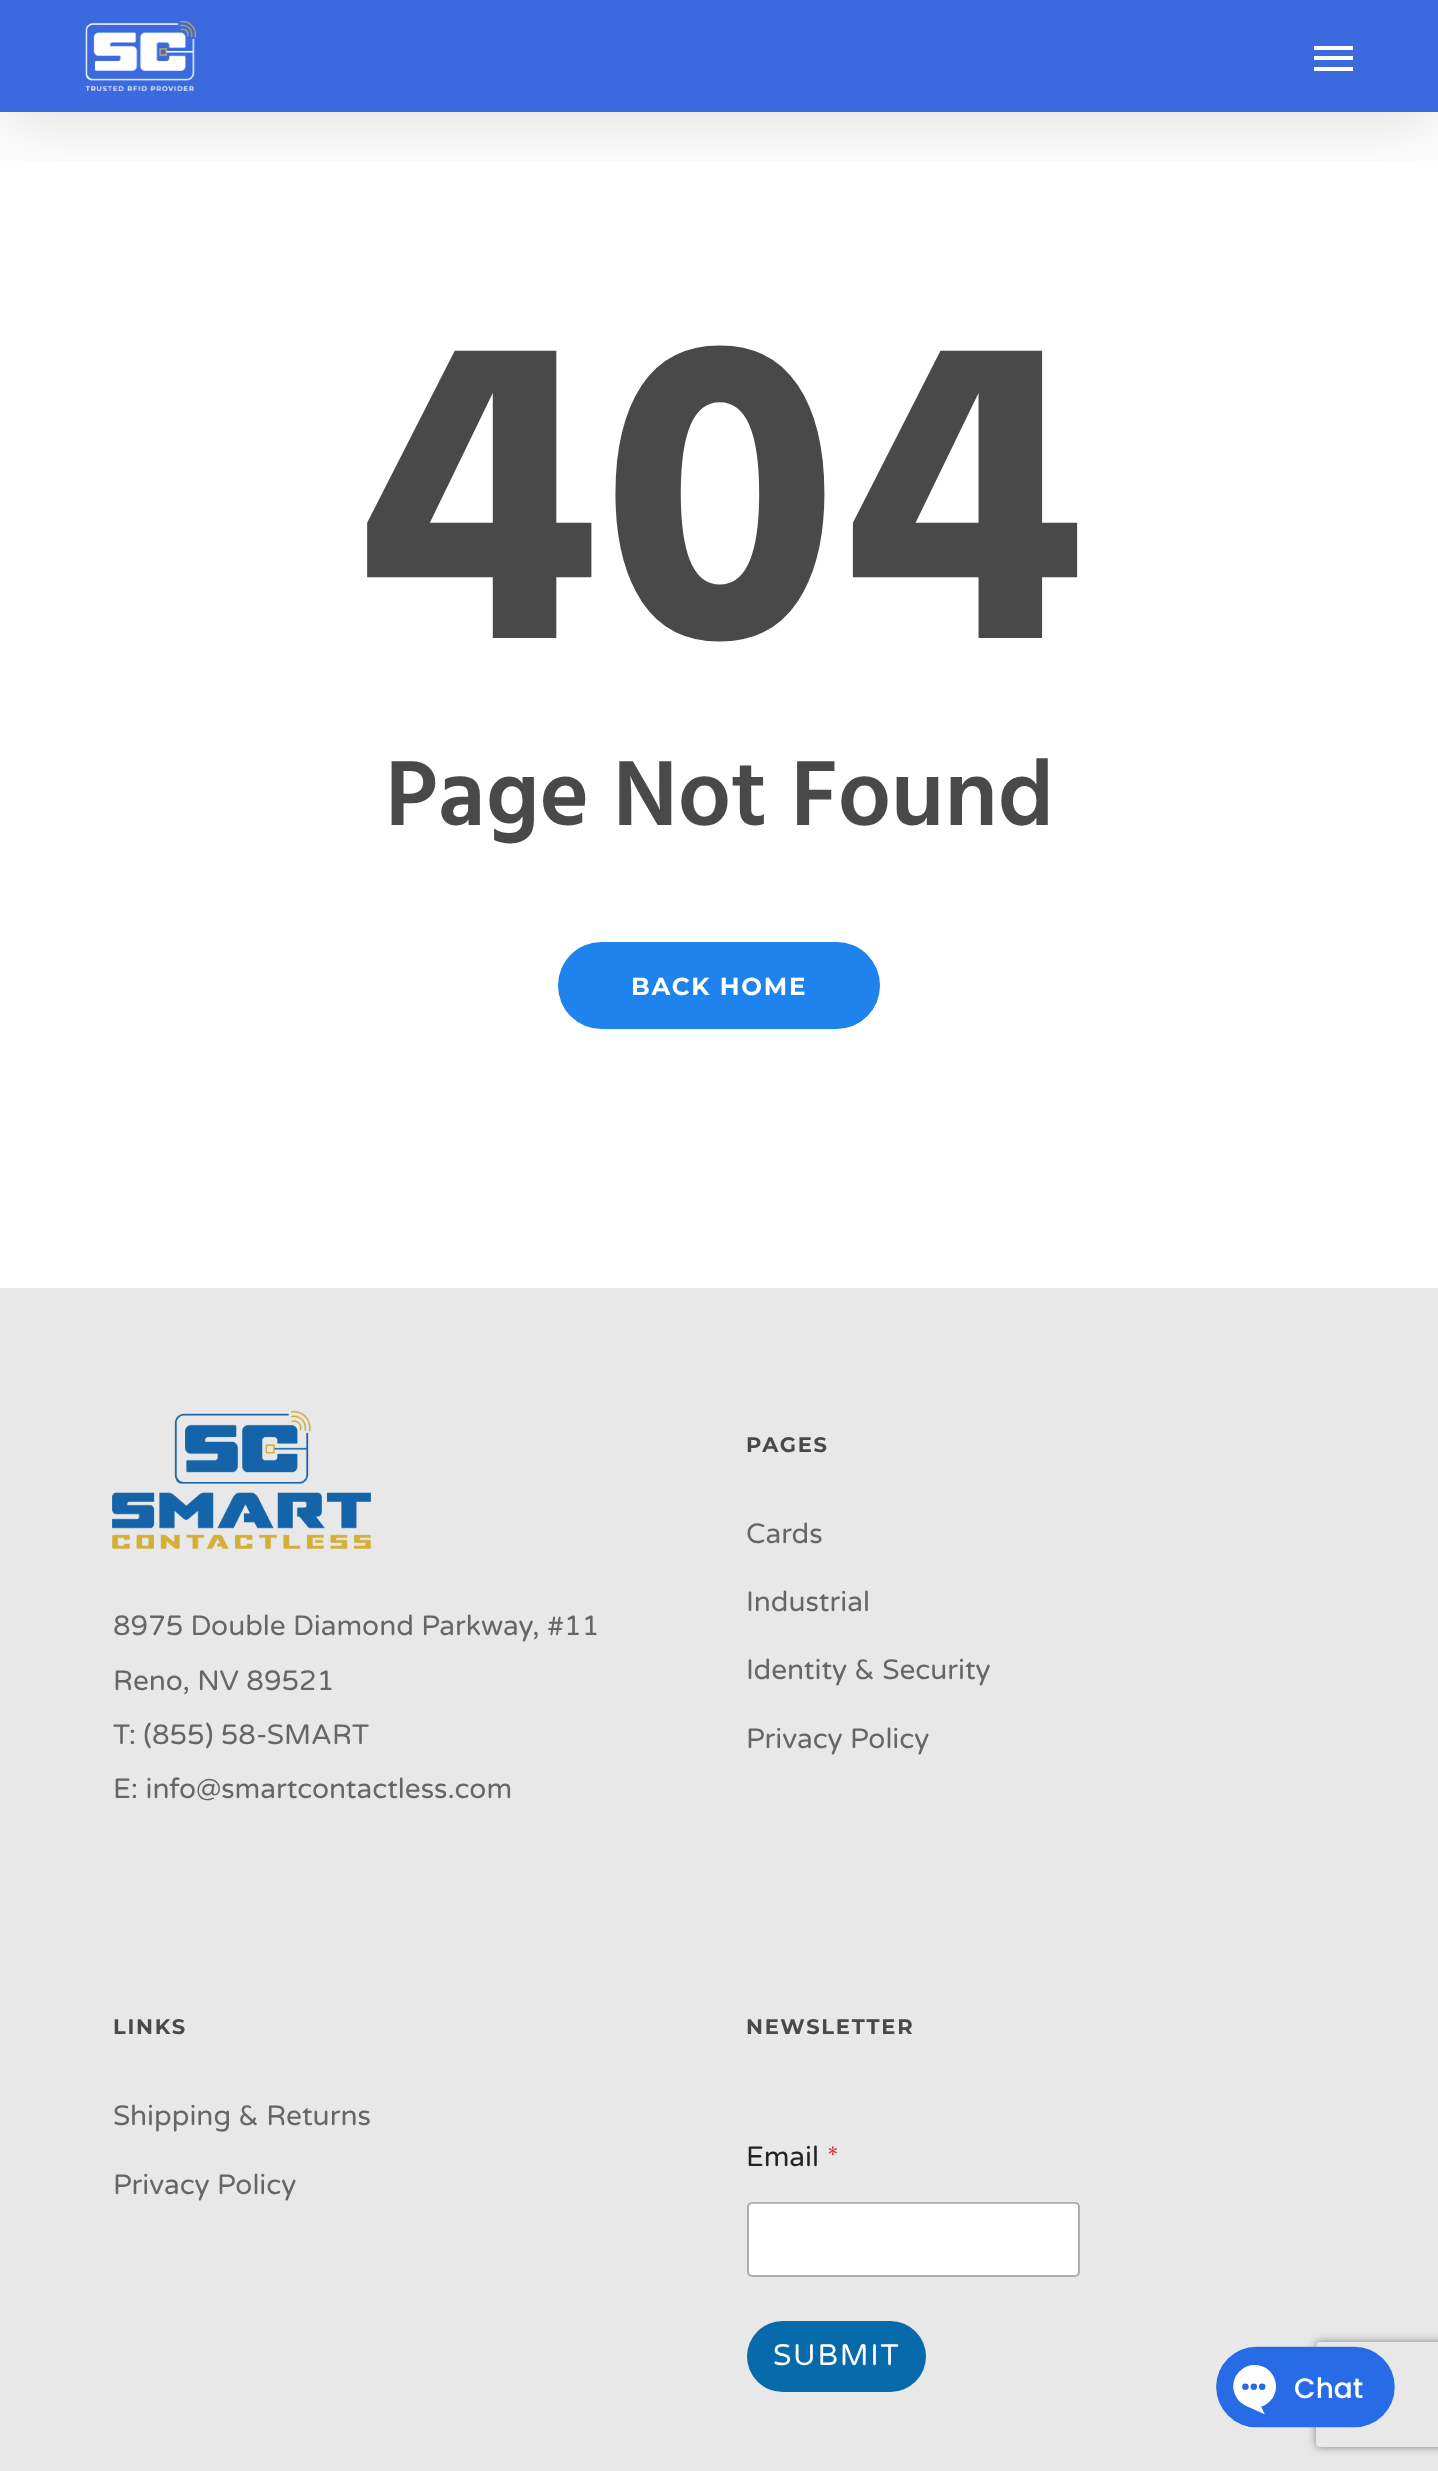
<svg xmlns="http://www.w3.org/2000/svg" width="1438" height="2471">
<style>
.a{font:bold 438px Hind;fill:#494949}
.b{font:600 94.5px Hind;fill:#494949}
.c{font:100 24.5px Montserrat;letter-spacing:1.75px;fill:#fff}
.d{font:28px Varela Round;fill:#666}
.e{font:100 21px Montserrat;letter-spacing:1.75px;fill:#494949}
.f{font:28px Varela Round;fill:#232323}
.g{font:28px Varela Round;fill:#d63637}
.h{font:29.75px Varela Round;letter-spacing:1.75px;fill:#fff}
</style>
<defs>
<clipPath id="clip1"><path d="M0 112h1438v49H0z"/></clipPath>
<clipPath id="clip2"><path d="M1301 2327h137v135h-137zm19 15h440c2 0 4 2 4 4v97c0 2-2 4-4 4h-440c-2 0-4-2-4-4v-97c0-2 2-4 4-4z" clip-rule="evenodd"/></clipPath>
</defs>
<rect width="100%" height="100%" fill="#fff"/>
<path fill="#3b69de" d="M0 0h1438v112H0z"/>
<g clip-path="url(#clip1)">
<path fill="#00000026" filter="blur(39.5px)" d="M0 5h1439v112H0z"/>
</g>
<image href="1.png" x="85" y="21" width="112" height="70"/>
<path fill="#fff" d="M1314 46h39v4H1314z"/>
<path fill="#fff" d="M1314 67h39v4H1314z"/>
<path fill="#fff" d="M1314 56h39v4H1314z"/>
<rect fill="#1e83ec" x="558" y="942" width="322" height="87" rx="43.5"/>
<path fill="#e8e8e8" d="M0 1288h1438v1183H0z"/>
<image href="2.png" x="112" y="1410" width="259" height="139"/>
<rect fill="#fff" x="749" y="2203" width="329" height="72" rx="4"/>
<rect fill="none" stroke="#00000040" stroke-width="2" x="748" y="2203" width="331" height="73" rx="4"/>
<rect fill="#066aab" x="747" y="2321" width="179" height="71" rx="35.5"/>
<g clip-path="url(#clip2)">
<rect fill="#808080" filter="blur(4.5px)" x="1316" y="2342" width="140" height="105" rx="4"/>
</g>
<image href="3.png" x="1216" y="2346" width="179" height="82"/>
<text class="a" x="354" y="638">404</text>
<text class="b" x="385" y="825">Page Not Found</text>
<text class="c" x="631" y="995">BACK HOME</text>
<text class="d" x="113" y="1635">8975 Double Diamond Parkway, #11</text>
<text class="d" x="113" y="1690">Reno, NV 89521</text>
<text class="d" x="113" y="1744">T: (855) 58-SMART</text>
<text class="d" x="113" y="1798">E: info@smartcontactless.com</text>
<text class="e" x="746" y="1452">PAGES</text>
<text class="d" x="746" y="1543">Cards</text>
<text class="d" x="746" y="1611">Industrial</text>
<text class="d" x="746" y="1679">Identity &amp; Security</text>
<text class="d" x="746" y="1748">Privacy Policy</text>
<text class="e" x="113" y="2034">LINKS</text>
<text class="d" x="113" y="2125">Shipping &amp; Returns</text>
<text class="d" x="113" y="2194">Privacy Policy</text>
<text class="e" x="746" y="2034">NEWSLETTER</text>
<text class="f" x="746" y="2166">Email</text>
<text class="g" x="827" y="2166">*</text>
<text class="h" x="773" y="2365">SUBMIT</text>
</svg>
